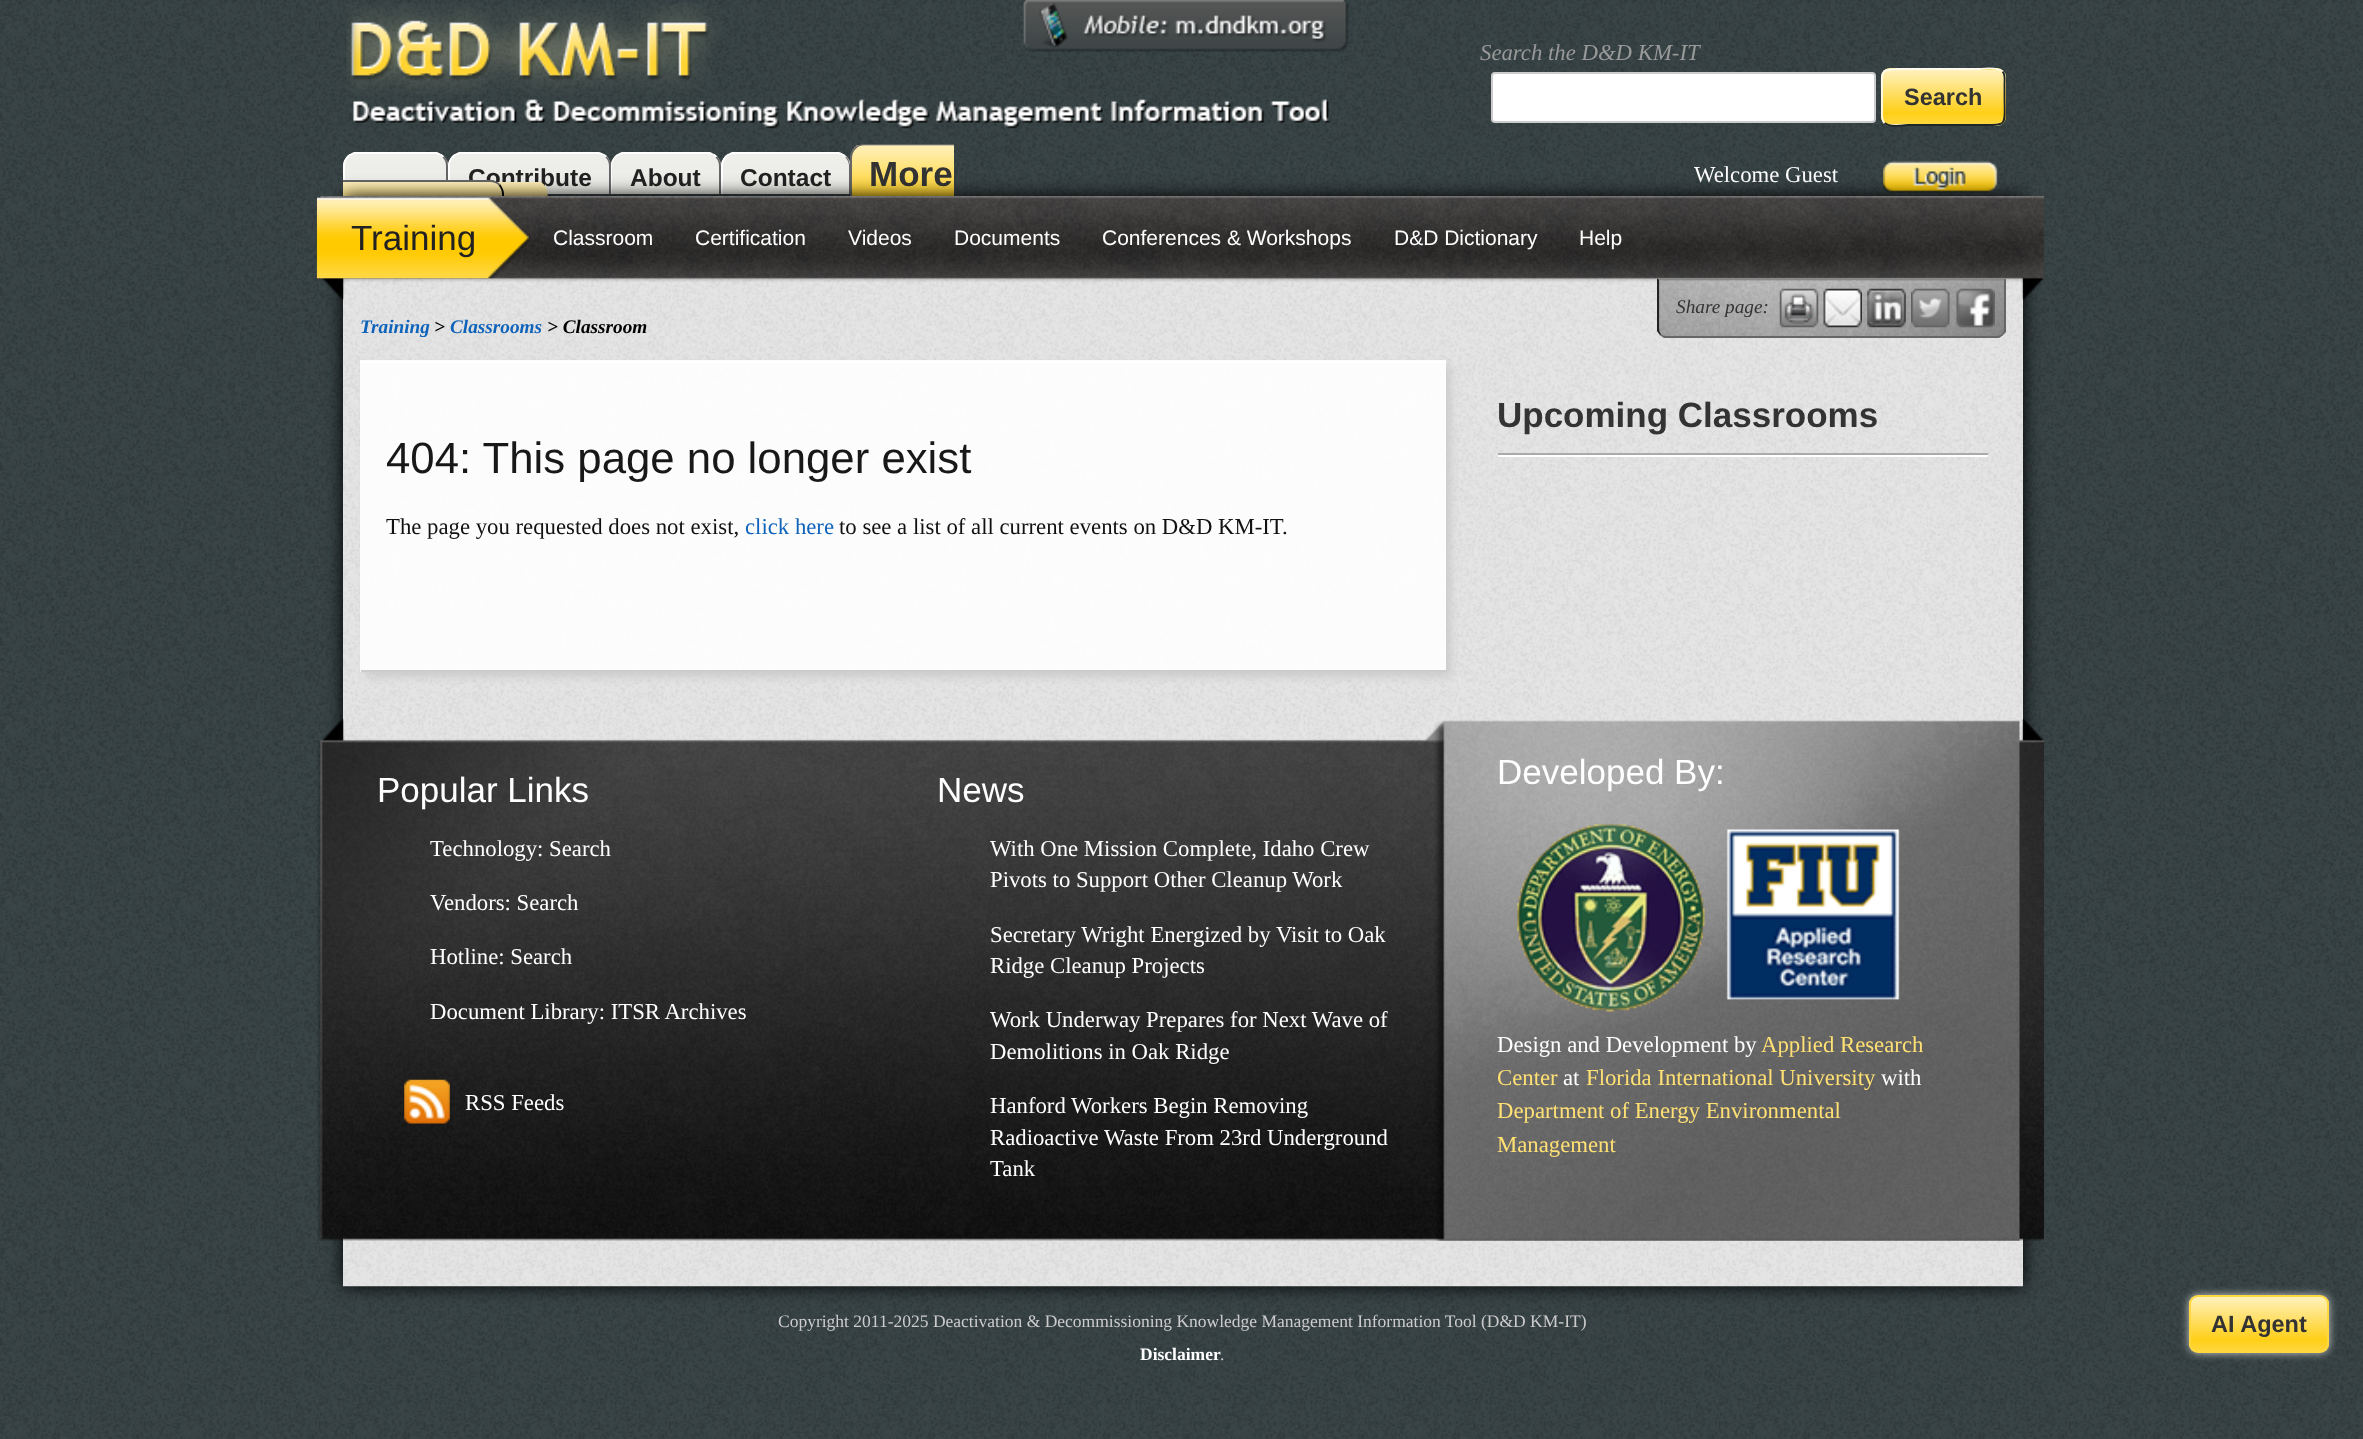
<svg xmlns="http://www.w3.org/2000/svg" width="2363" height="1439">
<style>
.a{font:italic 22.75px Liberation Serif;fill:#999}
.b{font:bold 23.5px Liberation Sans;fill:#333}
.c{font:bold 24.5px Liberation Sans;fill:#222}
.d{font:bold 35px Liberation Sans;fill:#333}
.e{font:22.75px Liberation Serif;fill:#fff}
.f{font:35px Liberation Sans;fill:#222}
.g{font:21px Liberation Sans;fill:#fff}
.h{font:italic 19.25px Liberation Serif;fill:#333}
.i{font:italic bold 19.25px Liberation Serif;fill:#0f63ba}
.j{font:italic bold 19.25px Liberation Serif;fill:#000}
.k{font:43.75px Liberation Sans;fill:#181818}
.l{font:22.75px Liberation Serif;fill:#111}
.m{font:22.75px Liberation Serif;fill:#0f63ba}
.n{font:35px Liberation Sans;fill:#fff}
.o{font:22.75px Liberation Serif;fill:#ffe074}
.p{font:17.5px Liberation Serif;fill:#ccc}
.q{font:bold 17.5px Liberation Serif;fill:#fff}
</style>
<defs>
<clipPath id="clip1"><rect x="1881" y="68" width="125" height="58" rx="9"/></clipPath>
<linearGradient id="g1" gradientUnits="userSpaceOnUse" x1="1943" y1="16" x2="1943" y2="70"><stop offset="0" stop-color="#fff1bc"/><stop offset="0.8" stop-color="#ffcf17"/><stop offset="1" stop-color="#ffd73f"/></linearGradient>
<linearGradient id="g2" gradientUnits="userSpaceOnUse" x1="1943" y1="70" x2="1943" y2="124"><stop offset="0" stop-color="#fff1bc"/><stop offset="0.8" stop-color="#ffcf17"/><stop offset="1" stop-color="#ffd73f"/></linearGradient>
<linearGradient id="g3" gradientUnits="userSpaceOnUse" x1="1943" y1="124" x2="1943" y2="179"><stop offset="0" stop-color="#fff1bc"/><stop offset="0.8" stop-color="#ffcf17"/><stop offset="1" stop-color="#ffd73f"/></linearGradient>
<clipPath id="clip2"><rect x="2189" y="1295" width="140" height="58" rx="9"/></clipPath>
<linearGradient id="g4" gradientUnits="userSpaceOnUse" x1="2259" y1="1297" x2="2259" y2="1351"><stop offset="0" stop-color="#fff1bc"/><stop offset="0.8" stop-color="#ffcf17"/><stop offset="1" stop-color="#ffd73f"/></linearGradient>
<clipPath id="clip3"><path d="M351 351h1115v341h-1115zm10 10h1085v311h-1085z" clip-rule="evenodd"/></clipPath>
</defs>
<rect width="100%" height="100%" fill="#fff"/>
<image href="1.png" x="0" y="0" width="2363" height="1439"/>
<image href="3.png" x="346" y="3" width="985" height="126"/>
<image href="2.png" x="1023" y="0" width="326" height="52"/>
<rect fill="#fff" stroke="#ccc" stroke-width="2" x="1492" y="73" width="383" height="49" rx="3"/>
<g clip-path="url(#clip1)">
<path fill="url(#g1)" d="M1881 68h125v2H1881z"/>
<path fill="url(#g2)" d="M1881 70h125v54H1881z"/>
<path fill="url(#g3)" d="M1881 124h125v2H1881z"/>
</g>
<path fill="none" stroke="#1f2628" stroke-width="1.8" d="M2002.5 71.5c3 3 2 8 2 12v13.5c0 30 4.5 28-25.5 28h-71c-2.5 0-18.5 3-23.5-2"/>
<path fill="none" stroke="#fffbee" stroke-width="1.8" d="M1884.5 123c-3.5-3.5-2.5-8.5-2.5-12.5v-13.5c0-30-4-28 26-28h71c2.5 0 18-2.5 23.5 2.5"/>
<image href="5.png" x="343" y="154" width="105" height="26"/>
<path fill="#fff" d="M357 154c-4 0-7 1-9 4l-1-2c2-2 5-3 7-4h83c2 1 5 2 7 4l-1 2c-2-3-5-4-9-4z"/>
<image href="6.png" x="448" y="154" width="163" height="41"/>
<path fill="#fff" d="M462 154c-4 0-7 1-9 4l-1-2c2-2 5-3 7-4h140c3 1 6 2 8 4l-1 1c-2-2-6-3-9-3z"/>
<path fill="#666" d="M611 163.5v30.5h-2v-28c0-3.5-1-6.5-3.5-8.5l1-1c2 2 3.5 4.5 4.5 7z"/>
<image href="7.png" x="610" y="154" width="111" height="41"/>
<image href="8.png" x="721" y="154" width="129" height="41"/>
<path fill="#fff" d="M343 166v28h2v-28c0-3.5 1-6.5 3.5-8.5l-1.5-1c-2.5 2.5-4 6-4 9.5z"/>
<path fill="#666" d="M448 194v-28c0-3.5-1.5-7-4-9.5l-1.5 1c2.5 2 3.5 5 3.5 8.5v28z"/>
<path fill="#fff" d="M448 166v28h2v-28c0-3.5 1-6.5 3.5-8.5l-1.5-1c-2.5 2.5-4 6-4 9.5z"/>
<path fill="#fff" d="M625 154c-3 0-7 1-9 3l-1-1c2-2 4-3 7-4h88c2 1 5 2 7 4l-1 2c-2-3-5-4-9-4z"/>
<path fill="#666" d="M721 194v-28c0-3.5-1.5-7-4-9.5l-1.5 1c2.5 2 3.5 5 3.5 8.5v28z"/>
<path fill="#fff" d="M616 157.5l-1-1c-2.5 2.5-4 6-4 9.5v28h1v-28c0-3.5 1.5-6.5 4-8.5z"/>
<path fill="#fff" d="M735 154c-4 0-7 1-9 4l-1-2c2-2 5-3 7-4h107c3 1 5 2 7 5h-1c-2-2-5-3-9-3z"/>
<path fill="#666" d="M846 156.5l-.5 1c2 2 3.5 5 3.5 8.5v28h1v-28c0-3.5-1.5-7-4-9.5z"/>
<path fill="#fff" d="M721 166v28h2v-28c0-3.5 1-6.5 3.5-8.5l-1.5-1c-2.5 2.5-4 6-4 9.5z"/>
<image href="9.png" x="1883" y="160" width="115" height="33"/>
<rect fill="#ccc" filter="blur(4.5px)" x="2189" y="1295" width="140" height="58" rx="9"/>
<g clip-path="url(#clip2)">
<path fill="url(#g4)" d="M2189 1297h140v54H2189z"/>
</g>
<rect fill="none" stroke="#ffd73f" stroke-width="2" x="2190" y="1296" width="138" height="56" rx="8"/>
<text class="a" x="1480" y="60">Search the D&amp;D KM-IT</text>
<text class="b" x="1904" y="105">Search</text>
<text class="c" x="468" y="186">Contribute</text>
<text class="c" x="630" y="186">About</text>
<text class="c" x="740" y="186">Contact</text>
<image href="4.png" x="343" y="145" width="611" height="51"/>
<path fill="#666" fill-rule="evenodd" d="M864 144h90v52h-104v-38c0-8 7-14 14-14zm0 1h90v51h-102v-38c0-7 6-13 12-13z"/>
<text class="d" x="869" y="186">More</text>
<path fill="#666" d="M343 182h147c4 0 7 1 9 4l1-2c-2-2-5-3-7-4h-150z"/>
<path fill="#000" d="M502 233v-39c0-3-1-6-3-8l1-2c2 3 4 6 4 10v39z"/>
<text class="e" x="1694" y="182">Welcome Guest</text>
<path fill="#000" filter="blur(9px)" d="M343 196h1680v1090H343z"/>
<image href="10.png" x="343" y="277" width="1680" height="1010"/>
<image href="11.png" x="316" y="196" width="1728" height="104"/>
<image href="12.png" x="316" y="197" width="215" height="82"/>
<text class="f" x="351" y="250">Training</text>
<text class="g" x="553" y="245">Classroom</text>
<text class="g" x="695" y="245">Certification</text>
<text class="g" x="848" y="245">Videos</text>
<text class="g" x="954" y="245">Documents</text>
<text class="g" x="1102" y="245">Conferences &amp; Workshops</text>
<text class="g" x="1394" y="245">D&amp;D Dictionary</text>
<text class="g" x="1579" y="245">Help</text>
<path fill="#efefeb" d="M1657 278h349v51c0 5-4 9-9 9h-331c-5 0-9-4-9-9z"/>
<image href="13.png" x="1657" y="278" width="349" height="60"/>
<path fill="#888" d="M1659 280h345l2-2h-349z"/>
<path fill="#666" d="M2006 278v54l-3 3l-1-1c1-1 2-3 2-5v-49z"/>
<path fill="#666" d="M1664 338l-4-3l1-1c1 1 3 2 5 2h331c2 0 4-1 5-2l1 1l-4 3z"/>
<path fill="#222" d="M1659 280v49c0 2 1 4 2 5l-1 1l-3-4v-53z"/>
<text class="h" x="1676" y="313">Share page:</text>
<image href="14.png" x="1779" y="288" width="40" height="40"/>
<image href="15.png" x="1823" y="288" width="39" height="40"/>
<image href="16.png" x="1867" y="288" width="39" height="40"/>
<image href="17.png" x="1911" y="288" width="39" height="40"/>
<image href="18.png" x="1956" y="288" width="39" height="40"/>
<text class="i" x="360" y="333">Training</text>
<text class="j" x="434" y="333">&gt;</text>
<text class="i" x="450" y="333">Classrooms</text>
<text class="j" x="547" y="333">&gt; Classroom</text>
<g clip-path="url(#clip3)">
<path fill="#ccc" filter="blur(4.5px)" d="M366 366h1085v311H366z"/>
</g>
<path fill="#ffffffe6" d="M360 360h1086v312H360z"/>
<path fill="#fff" d="M361 361h1085v2H361z"/>
<path fill="#ccc" d="M361 670h1085v2H361z"/>
<text class="k" x="386" y="473">404: This page no longer exist</text>
<text class="l" x="386" y="534">The page you requested does not exist,</text>
<text class="m" x="745" y="534">click here</text>
<text class="l" x="839" y="534">to see a list of all current events on D&amp;D KM-IT.</text>
<path fill="#fff" d="M1498 455h490v2H1498z"/>
<path fill="#aaa" d="M1498 453h490v2H1498z"/>
<text class="d" x="1497" y="427">Upcoming Classrooms</text>
<image href="19.png" x="317" y="718" width="1727" height="523"/>
<text class="n" x="377" y="802">Popular Links</text>
<text class="e" x="430" y="856">Technology: Search</text>
<text class="e" x="430" y="910">Vendors: Search</text>
<text class="e" x="430" y="964">Hotline: Search</text>
<text class="e" x="430" y="1019">Document Library: ITSR Archives</text>
<image href="20.png" x="404" y="1079" width="46" height="45"/>
<text class="e" x="465" y="1110">RSS Feeds</text>
<text class="n" x="937" y="802">News</text>
<text class="e" x="990" y="856">With One Mission Complete, Idaho Crew</text>
<text class="e" x="990" y="887">Pivots to Support Other Cleanup Work</text>
<text class="e" x="990" y="942">Secretary Wright Energized by Visit to Oak</text>
<text class="e" x="990" y="973">Ridge Cleanup Projects</text>
<text class="e" x="990" y="1027">Work Underway Prepares for Next Wave of</text>
<text class="e" x="990" y="1059">Demolitions in Oak Ridge</text>
<text class="e" x="990" y="1113">Hanford Workers Begin Removing</text>
<text class="e" x="990" y="1145">Radioactive Waste From 23rd Underground</text>
<text class="e" x="990" y="1176">Tank</text>
<text class="n" x="1497" y="784">Developed By:</text>
<image href="21.png" x="1516" y="823" width="384" height="189"/>
<text class="e" x="1497" y="1052">Design and Development by</text>
<text class="o" x="1761" y="1052">Applied Research</text>
<text class="o" x="1497" y="1085">Center</text>
<text class="e" x="1563" y="1085">at</text>
<text class="o" x="1586" y="1085">Florida International University</text>
<text class="e" x="1881" y="1085">with</text>
<text class="o" x="1497" y="1118">Department of Energy Environmental</text>
<text class="o" x="1497" y="1152">Management</text>
<text class="b" x="2211" y="1332">AI Agent</text>
<text class="p" x="778" y="1327">Copyright 2011-2025 Deactivation &amp; Decommissioning Knowledge Management Information Tool (D&amp;D KM-IT)</text>
<text class="q" x="1140" y="1360">Disclaimer</text>
<text class="p" x="1220" y="1360">.</text>
</svg>
